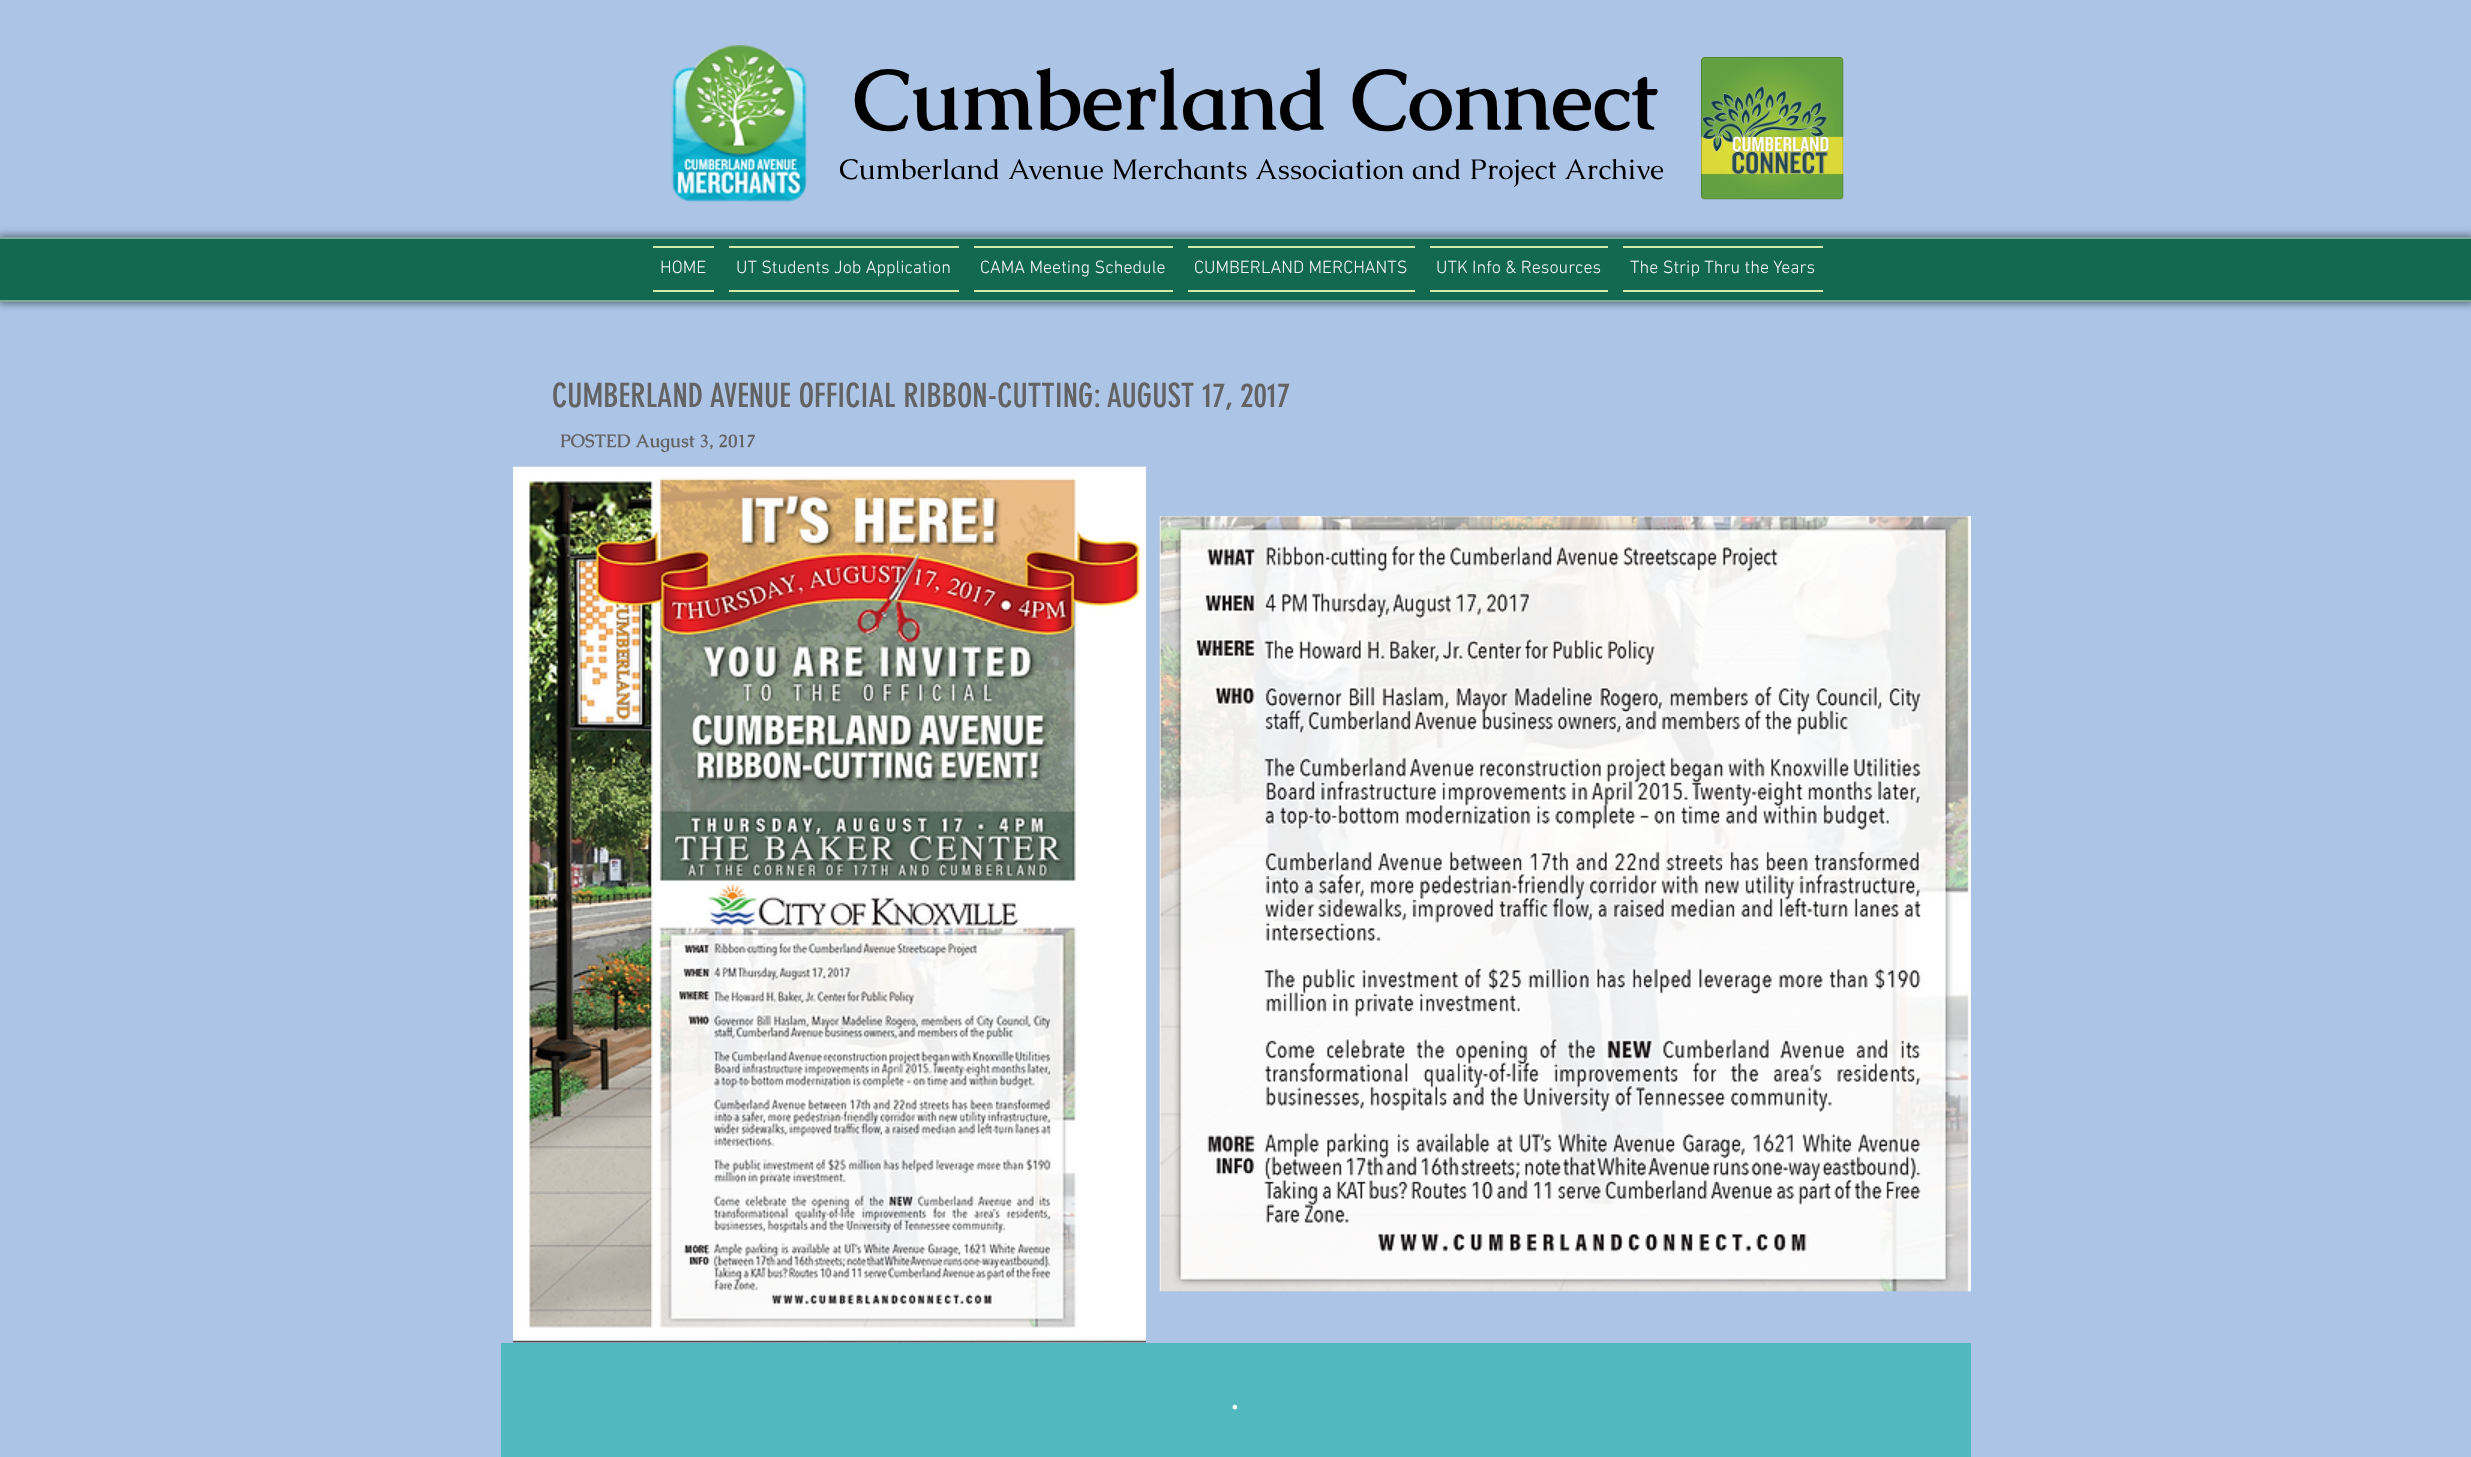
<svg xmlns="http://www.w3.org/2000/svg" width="2471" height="1457">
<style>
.a{font:bold 84px Caudex;fill:#000}
.b{font:28.5px Caudex;fill:#000}
.c{font:300 18px 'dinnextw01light';fill:#f8f8f8}
.d{font:33px 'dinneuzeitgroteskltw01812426';fill:#636363}
.e{font:bold 18px Caudex;fill:#636363}
.f{font:bold 18px 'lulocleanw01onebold';letter-spacing:-2px;fill:#fff}
</style>
<rect width="100%" height="100%" fill="#acc4e6"/>
<image href="1.png" x="671" y="45" width="137" height="157"/>
<image href="2.png" x="1701" y="57" width="143" height="143"/>
<path fill="#0000008a" filter="blur(4.5px)" d="M-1 236h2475v67H-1z"/>
<path fill="#13694f" d="M0 239h2471v61H0z"/>
<path fill="#7bab9c" d="M0 237h2471v2H0z"/>
<path fill="#7bab9c" d="M0 300h2471v2H0z"/>
<path fill="#d3ebab" d="M653 246h61v2H653z"/>
<path fill="#d3ebab" d="M653 290h61v2H653z"/>
<path fill="#d3ebab" d="M729 246h230v2H729z"/>
<path fill="#d3ebab" d="M729 290h230v2H729z"/>
<path fill="#d3ebab" d="M974 246h199v2H974z"/>
<path fill="#d3ebab" d="M974 290h199v2H974z"/>
<path fill="#d3ebab" d="M1188 246h227v2H1188z"/>
<path fill="#d3ebab" d="M1188 290h227v2H1188z"/>
<path fill="#d3ebab" d="M1430 246h178v2H1430z"/>
<path fill="#d3ebab" d="M1430 290h178v2H1430z"/>
<path fill="#d3ebab" d="M1623 246h200v2H1623z"/>
<path fill="#d3ebab" d="M1623 290h200v2H1623z"/>
<image href="3.png" x="513" y="466" width="633" height="877"/>
<image href="4.png" x="1159" y="516" width="812" height="776"/>
<path fill="#52b8c0" d="M501 1343h1470v114H501z"/>
<text class="a" x="853" y="129">Cumberland Connect</text>
<text class="b" x="839" y="179">Cumberland Avenue Merchants Association and Project Archive</text>
<text class="c" x="660" y="273">HOME</text>
<text class="c" x="736" y="273">UT Students Job Application</text>
<text class="c" x="980" y="273">CAMA Meeting Schedule</text>
<text class="c" x="1194" y="273">CUMBERLAND MERCHANTS</text>
<text class="c" x="1436" y="273">UTK Info &amp; Resources</text>
<text class="c" x="1630" y="273">The Strip Thru the Years</text>
<text class="d" x="552" y="407">CUMBERLAND AVENUE OFFICIAL RIBBON-CUTTING: AUGUST 17, 2017</text>
<text class="e" x="560" y="447">POSTED August 3, 2017</text>
<text class="f" x="1232" y="1409">.</text>
</svg>
